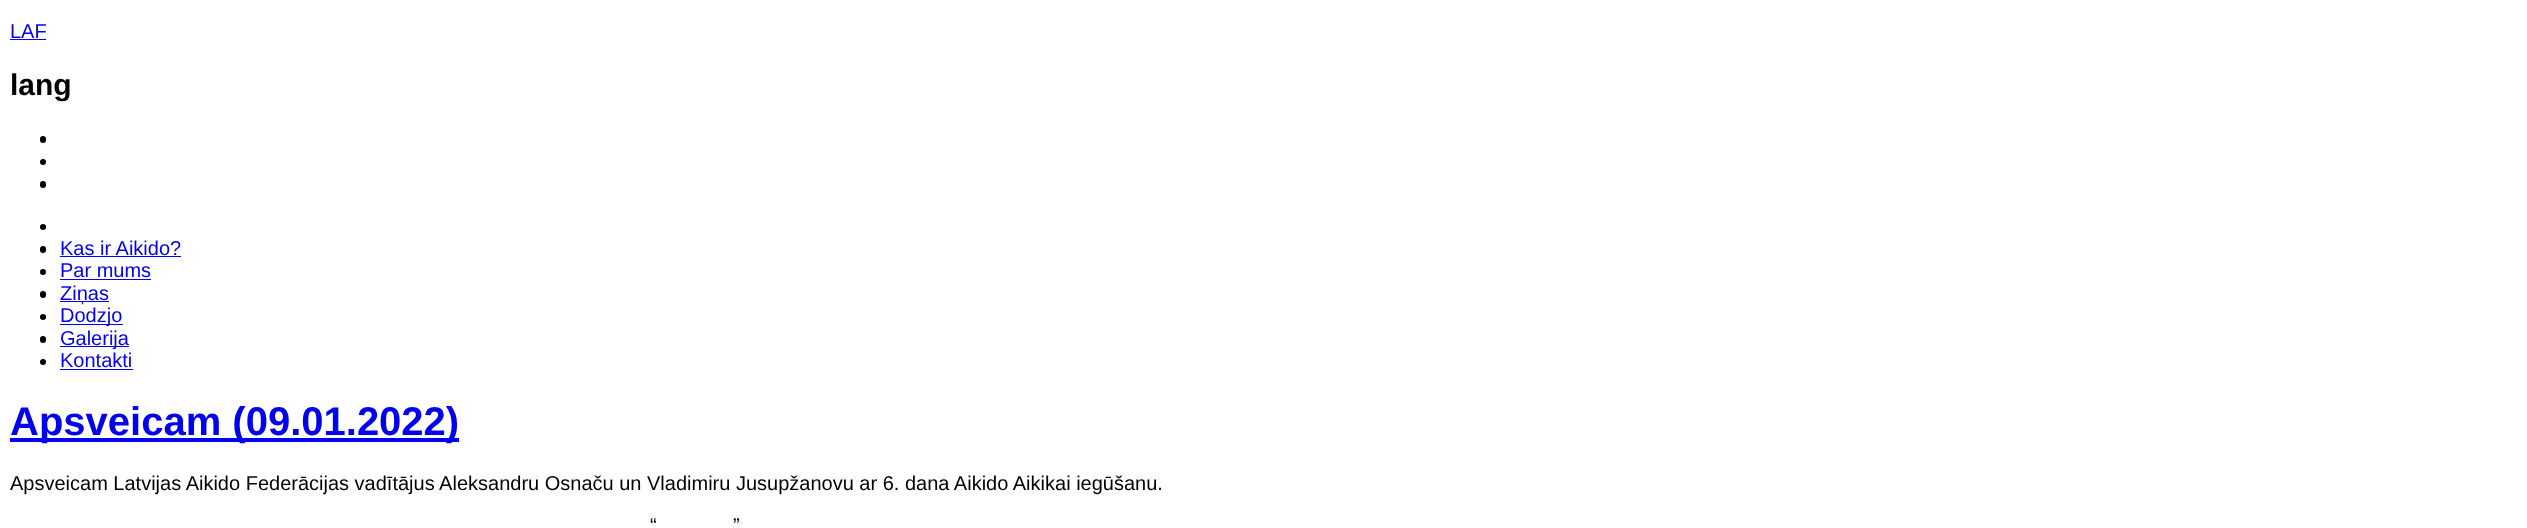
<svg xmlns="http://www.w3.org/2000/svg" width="2527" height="528">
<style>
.a{font:20px Liberation Sans;fill:#00e}
.b{font:bold 30px Liberation Sans;fill:#000}
.c{font:bold 40px Liberation Sans;fill:#00e}
.d{font:20px Liberation Sans;fill:#000}
</style>
<rect width="100%" height="100%" fill="#fff"/>
<path fill="#00e" d="M10 39h36v1H10z"/>
<rect fill="#000" x="40" y="136" width="6" height="7" rx="3"/>
<circle fill="#000" cx="43" cy="162" r="3"/>
<rect fill="#000" x="40" y="181" width="6" height="7" rx="3"/>
<circle fill="#000" cx="43" cy="227" r="3"/>
<rect fill="#000" x="40" y="246" width="6" height="7" rx="3"/>
<path fill="#00e" d="M60 256h121v1H60z"/>
<circle fill="#000" cx="43" cy="272" r="3"/>
<path fill="#00e" d="M60 279h91v1H60z"/>
<rect fill="#000" x="40" y="291" width="6" height="7" rx="3"/>
<path fill="#00e" d="M60 301h49v1H60z"/>
<circle fill="#000" cx="43" cy="317" r="3"/>
<path fill="#00e" d="M60 324h63v1H60z"/>
<rect fill="#000" x="40" y="336" width="6" height="7" rx="3"/>
<path fill="#00e" d="M60 346h69v1H60z"/>
<circle fill="#000" cx="43" cy="362" r="3"/>
<path fill="#00e" d="M60 369h73v1H60z"/>
<path fill="#00e" d="M10 438h449v4H10z"/>
<text class="a" x="10" y="38">LAF</text>
<text class="b" x="10" y="95">lang</text>
<text class="a" x="60" y="255">Kas ir Aikido?</text>
<text class="a" x="60" y="277">Par mums</text>
<text class="a" x="60" y="300">Ziņas</text>
<text class="a" x="60" y="322">Dodzjo</text>
<text class="a" x="60" y="345">Galerija</text>
<text class="a" x="60" y="367">Kontakti</text>
<text class="c" x="10" y="435">Apsveicam (09.01.2022)</text>
<text class="d" x="10" y="490">Apsveicam Latvijas Aikido Federācijas vadītājus Aleksandru Osnaču un Vladimiru Jusupžanovu ar 6. dana Aikido Aikikai iegūšanu.</text>
<text class="d" x="650" y="532">“</text>
<text class="d" x="733" y="532">”</text>
</svg>
